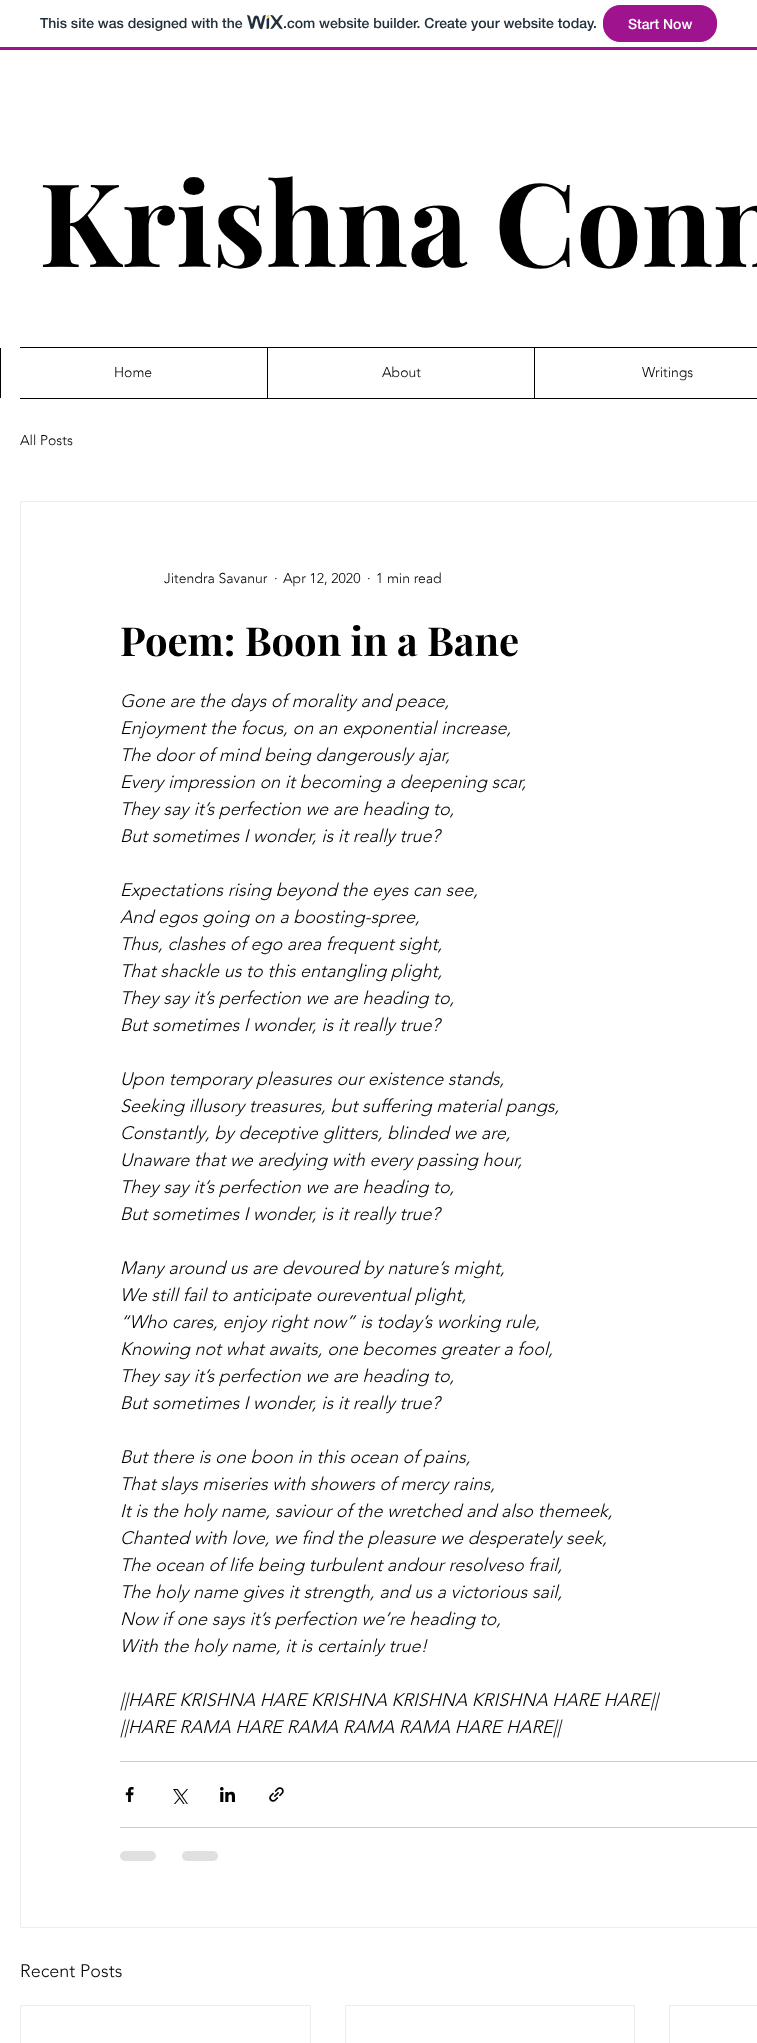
<svg xmlns="http://www.w3.org/2000/svg" width="757" height="2043">
<style>
.a{font:500 14px 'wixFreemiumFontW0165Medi';fill:#20303c}
.b{font:500 14px 'wixFreemiumFontW0165Medi';fill:#fff}
.c{font:bold 116px Playfair Display;fill:#000}
.d{font:300 14px 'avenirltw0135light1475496';fill:#000}
.e{font:bold 40px Playfair Display;fill:#000}
.f{font:italic 300 18px 'avenirltw0135light1475496';fill:#000}
.g{font:300 18px 'avenirltw0135light1475496';fill:#000}
</style>
<rect width="100%" height="100%" fill="#fff"/>
<path fill="#a0138e" d="M0 47h757v3H0z"/>
<image href="1.png" x="247" y="15" width="36" height="15"/>
<rect fill="#a0138e" stroke="#a0138e" x="603.5" y="5.5" width="113" height="36" rx="16.5"/>
<path fill="#000" d="M20 347h737v1H20z"/>
<path fill="#000" d="M0 348h1v50H0z"/>
<path fill="#000" d="M267 348h1v50H267z"/>
<path fill="#000" d="M534 348h1v50H534z"/>
<path fill="#000" d="M20 398h737v1H20z"/>
<path fill="none" stroke="#eeecec" d="M20.5 501.5h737v1426H20.5z"/>
<path fill="#ccc" d="M120 1761h637v1H120z"/>
<image href="2.png" x="125" y="1787" width="9" height="15"/>
<image href="3.png" x="173" y="1789" width="15" height="15"/>
<image href="4.png" x="220" y="1787" width="15" height="15"/>
<image href="5.png" x="269" y="1787" width="15" height="15"/>
<path fill="#ccc" d="M120 1827h637v1H120z"/>
<rect fill="#e0e0e0" x="120" y="1851" width="36" height="10" rx="5"/>
<rect fill="#e0e0e0" x="182" y="1851" width="36" height="10" rx="5"/>
<path fill="none" stroke="#eeecec" d="M20.5 2005.5h290v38H20.5z"/>
<path fill="none" stroke="#eeecec" d="M345.5 2005.5h289v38H345.5z"/>
<path fill="none" stroke="#eeecec" d="M669.5 2005.5h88v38H669.5z"/>
<text class="a" x="40" y="28">This site was designed with the</text>
<text class="a" x="283" y="28">.com website builder. Create your website today.</text>
<text class="b" x="628" y="29">Start Now</text>
<text class="c" x="39" y="267">Krishna Conn</text>
<text class="d" x="114" y="377">Home</text>
<text class="d" x="382" y="377">About</text>
<text class="d" x="642" y="377">Writings</text>
<text class="d" x="20" y="445">All Posts</text>
<text class="d" x="164" y="583">Jitendra Savanur</text>
<text class="d" x="274" y="583">·</text>
<text class="d" x="283" y="583">Apr 12, 2020</text>
<text class="d" x="367" y="583">·</text>
<text class="d" x="376" y="583">1 min read</text>
<text class="e" x="120" y="656">Poem: Boon in a Bane</text>
<text class="f" x="120" y="707">Gone are the days of morality and peace,</text>
<text class="f" x="120" y="734">Enjoyment the focus, on an exponential increase,</text>
<text class="f" x="120" y="761">The door of mind being dangerously ajar,</text>
<text class="f" x="120" y="788">Every impression on it becoming a deepening scar,</text>
<text class="f" x="120" y="815">They say it’s perfection we are heading to,</text>
<text class="f" x="120" y="842">But sometimes I wonder, is it really true?</text>
<text class="f" x="120" y="896">Expectations rising beyond the eyes can see,</text>
<text class="f" x="120" y="923">And egos going on a boosting-spree,</text>
<text class="f" x="120" y="950">Thus, clashes of ego area frequent sight,</text>
<text class="f" x="120" y="977">That shackle us to this entangling plight,</text>
<text class="f" x="120" y="1004">They say it’s perfection we are heading to,</text>
<text class="f" x="120" y="1031">But sometimes I wonder, is it really true?</text>
<text class="f" x="120" y="1085">Upon temporary pleasures our existence stands,</text>
<text class="f" x="120" y="1112">Seeking illusory treasures, but suffering material pangs,</text>
<text class="f" x="120" y="1139">Constantly, by deceptive glitters, blinded we are,</text>
<text class="f" x="120" y="1166">Unaware that we aredying with every passing hour,</text>
<text class="f" x="120" y="1193">They say it’s perfection we are heading to,</text>
<text class="f" x="120" y="1220">But sometimes I wonder, is it really true?</text>
<text class="f" x="120" y="1274">Many around us are devoured by nature’s might,</text>
<text class="f" x="120" y="1301">We still fail to anticipate oureventual plight,</text>
<text class="f" x="120" y="1328">“Who cares, enjoy right now” is today’s working rule,</text>
<text class="f" x="120" y="1355">Knowing not what awaits, one becomes greater a fool,</text>
<text class="f" x="120" y="1382">They say it’s perfection we are heading to,</text>
<text class="f" x="120" y="1409">But sometimes I wonder, is it really true?</text>
<text class="f" x="120" y="1463">But there is one boon in this ocean of pains,</text>
<text class="f" x="120" y="1490">That slays miseries with showers of mercy rains,</text>
<text class="f" x="120" y="1517">It is the holy name, saviour of the wretched and also themeek,</text>
<text class="f" x="120" y="1544">Chanted with love, we find the pleasure we desperately seek,</text>
<text class="f" x="120" y="1571">The ocean of life being turbulent andour resolveso frail,</text>
<text class="f" x="120" y="1598">The holy name gives it strength, and us a victorious sail,</text>
<text class="f" x="120" y="1625">Now if one says it’s perfection we’re heading to,</text>
<text class="f" x="120" y="1652">With the holy name, it is certainly true!</text>
<text class="f" x="120" y="1706">||HARE KRISHNA HARE KRISHNA KRISHNA KRISHNA HARE HARE||</text>
<text class="f" x="120" y="1733">||HARE RAMA HARE RAMA RAMA RAMA HARE HARE||</text>
<text class="g" x="20" y="1977">Recent Posts</text>
</svg>
